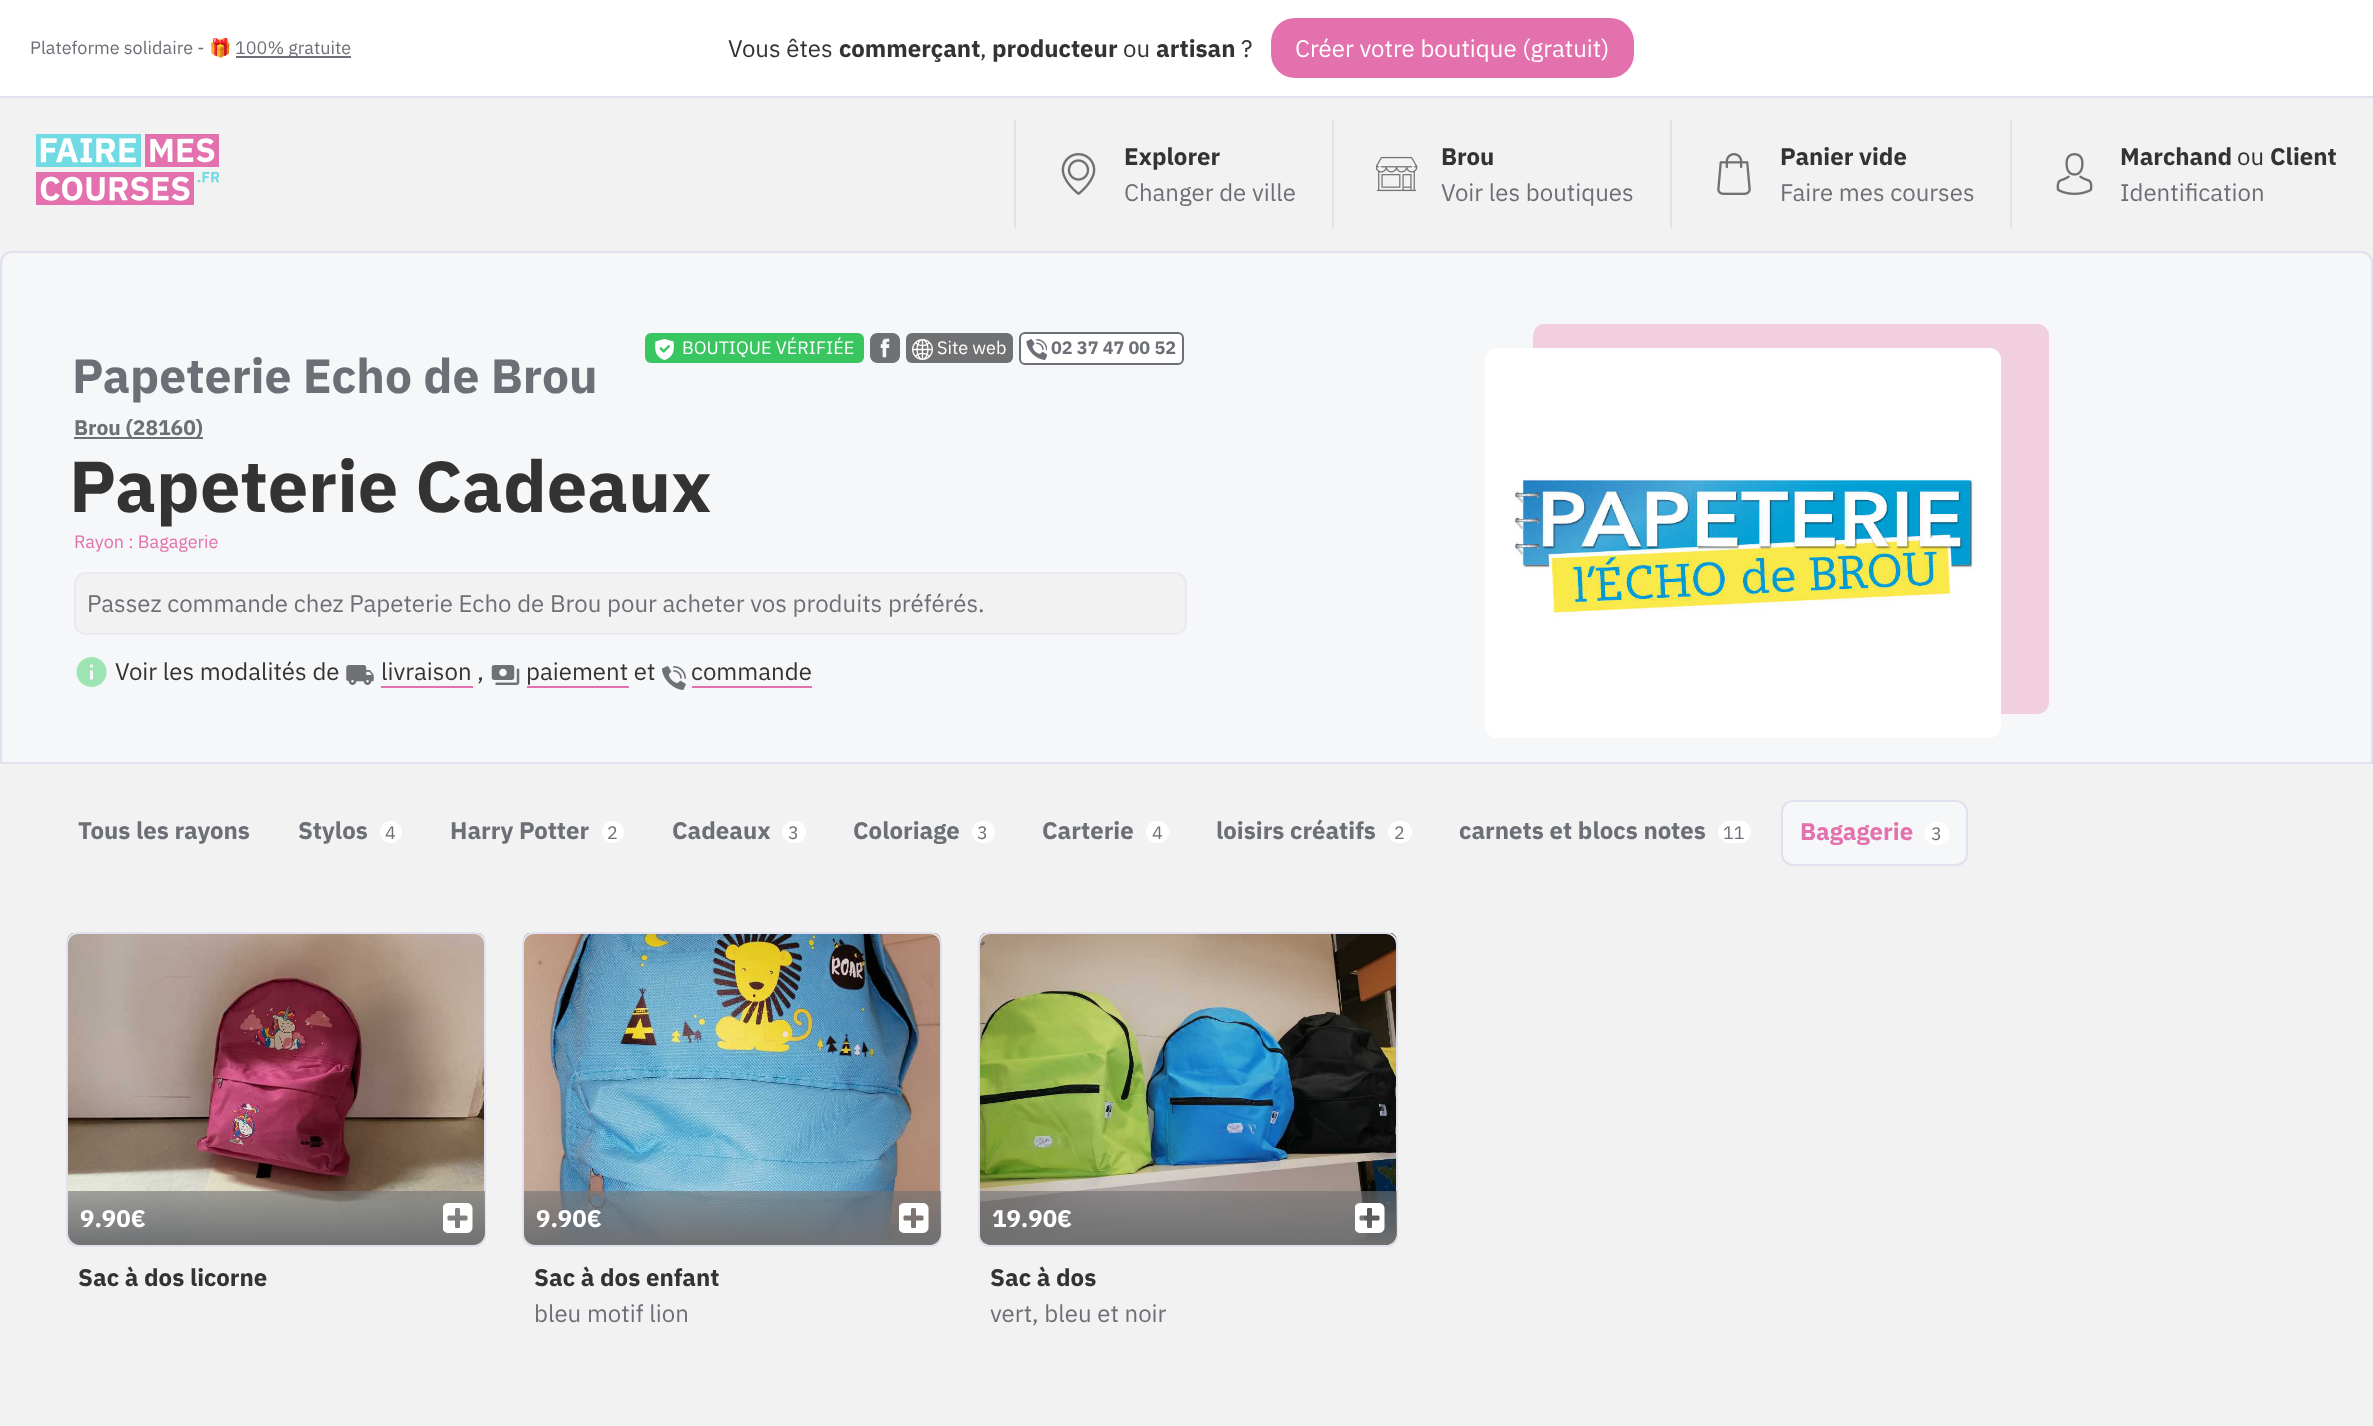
<svg xmlns="http://www.w3.org/2000/svg" width="2373" height="1426">
<style>
.a{font:18px IBM Plex Sans;fill:#6c6f75}
.b{font:18px Noto Color Emoji;fill:#6c6f75}
.c{font:24px IBM Plex Sans;fill:#333}
.d{font:bold 24px IBM Plex Sans;fill:#333}
.e{font:24px IBM Plex Sans;fill:#fff}
.f{font:24px IBM Plex Sans;fill:#6c6f75}
.g{font:18px IBM Plex Sans;fill:#fff}
.h{font:bold 18px IBM Plex Sans;fill:#6c6f75}
.i{font:bold 48px IBM Plex Sans;fill:#6c6f75}
.j{font:bold 21px IBM Plex Sans;fill:#6c6f75}
.k{font:bold 72px IBM Plex Sans;fill:#333}
.l{font:18px IBM Plex Sans;fill:#e271ad}
.m{font:bold 24px IBM Plex Sans;fill:#6c6f75}
.n{font:bold 24px IBM Plex Sans;fill:#e271ad}
.o{font:bold 24px IBM Plex Sans;fill:#fff}
</style>
<defs>
<linearGradient id="g1" gradientUnits="userSpaceOnUse" x1="276" y1="1191" x2="276" y2="1245"><stop offset="0" stop-color="#707173" stop-opacity="0.6"/><stop offset="1" stop-color="#707173"/></linearGradient>
<linearGradient id="g2" gradientUnits="userSpaceOnUse" x1="732" y1="1191" x2="732" y2="1245"><stop offset="0" stop-color="#707173" stop-opacity="0.6"/><stop offset="1" stop-color="#707173"/></linearGradient>
<linearGradient id="g3" gradientUnits="userSpaceOnUse" x1="1188" y1="1191" x2="1188" y2="1245"><stop offset="0" stop-color="#707173" stop-opacity="0.6"/><stop offset="1" stop-color="#707173"/></linearGradient>
</defs>
<rect width="100%" height="100%" fill="#f2f2f2"/>
<path fill="#fff" d="M0 0h2373v96H0z"/>
<path fill="#e0e0ee" d="M0 96h2373v2H0z"/>
<path fill="#6c6f75" d="M236 56h115v2H236z"/>
<rect fill="#e271ad" x="1271" y="18" width="363" height="60" rx="24"/>
<image href="1.png" x="36" y="134" width="183" height="71"/>
<path fill="#e0e0ee" d="M1014 120h2v108H1014z"/>
<image href="2.png" x="1061" y="153" width="35" height="42"/>
<path fill="#e0e0ee" d="M1332 120h2v108H1332z"/>
<image href="3.png" x="1376" y="156" width="42" height="36"/>
<path fill="#e0e0ee" d="M1670 120h2v108H1670z"/>
<image href="4.png" x="1717" y="153" width="34" height="42"/>
<path fill="#e0e0ee" d="M2010 120h2v108H2010z"/>
<image href="5.png" x="2056" y="153" width="37" height="42"/>
<path fill="#f6f7f9" stroke="#e0e0ee" stroke-width="2" d="M12 252h2349c6 0 11 5 11 11v500h-2371v-500c0-6 5-11 11-11z"/>
<rect fill="#39c661" x="645" y="333" width="219" height="30" rx="6"/>
<image href="6.png" x="655" y="339" width="19" height="21"/>
<image href="7.png" x="870" y="333" width="30" height="30"/>
<rect fill="#707173" x="906" y="333" width="107" height="30" rx="6"/>
<image href="8.png" x="912" y="339" width="21" height="21"/>
<rect fill="#fff" stroke="#6c6f75" stroke-width="2" x="1020" y="333" width="163" height="31" rx="5"/>
<image href="9.png" x="1026" y="339" width="21" height="21"/>
<path fill="#6c6f75" d="M74 437h129v2H74z"/>
<rect fill="#f2f2f2" stroke="#e8e9f2" stroke-width="2" x="75" y="573" width="1111" height="61" rx="11"/>
<image href="10.png" x="76" y="657" width="31" height="30"/>
<image href="11.png" x="346" y="665" width="28" height="20"/>
<path fill="#e271ad" d="M381 686h92v2H381z"/>
<image href="12.png" x="491" y="665" width="29" height="20"/>
<path fill="#e271ad" d="M527 686h102v2H527z"/>
<image href="13.png" x="662" y="666" width="24" height="24"/>
<path fill="#e271ad" d="M692 686h120v2H692z"/>
<path fill="#f1cfdf" d="M1545 324c-14 0-12 15-12 24h456c7 0 12 5 12 12v354h36c7 0 12-5 12-12v-366c0-7-5-12-12-12z"/>
<rect fill="none" stroke="#fff" stroke-width="6" x="1488" y="351" width="510" height="384" rx="9"/>
<image href="14.png" x="1491" y="354" width="504" height="378"/>
<circle fill="#fff" cx="391" cy="832" r="11"/>
<circle fill="#fff" cx="613" cy="832" r="11"/>
<rect fill="#fff" x="782" y="821" width="24" height="22" rx="11"/>
<rect fill="#fff" x="972" y="821" width="23" height="22" rx="11"/>
<rect fill="#fff" x="1146" y="821" width="23" height="22" rx="11"/>
<rect fill="#fff" x="1388" y="821" width="24" height="22" rx="11"/>
<rect fill="#fff" x="1718" y="821" width="33" height="22" rx="11"/>
<rect fill="#f6f7f9" stroke="#e0e0ee" stroke-width="2" x="1782" y="801" width="185" height="64" rx="11"/>
<rect fill="#fff" x="1925" y="822" width="24" height="23" rx="11.5"/>
<image href="15.png" x="67" y="933" width="418" height="314"/>
<rect fill="none" stroke="#e0e0ee" stroke-width="2" x="67" y="933" width="418" height="313" rx="11"/>
<path fill="url(#g1)" d="M68 1191h417v42c0 6.5-5.5 12-12 12h-393c-6.5 0-12-5.5-12-12z"/>
<image href="16.png" x="443" y="1203" width="30" height="30"/>
<image href="17.png" x="523" y="933" width="418" height="314"/>
<rect fill="none" stroke="#e0e0ee" stroke-width="2" x="523" y="933" width="418" height="313" rx="11"/>
<path fill="url(#g2)" d="M524 1191h417v42c0 6.5-5.5 12-12 12h-393c-6.5 0-12-5.5-12-12z"/>
<image href="18.png" x="899" y="1203" width="30" height="30"/>
<image href="19.png" x="979" y="933" width="418" height="314"/>
<rect fill="none" stroke="#e0e0ee" stroke-width="2" x="979" y="933" width="418" height="313" rx="11"/>
<path fill="url(#g3)" d="M980 1191h417v42c0 6.5-5.5 12-12 12h-393c-6.5 0-12-5.5-12-12z"/>
<image href="20.png" x="1355" y="1203" width="30" height="30"/>
<text class="a" x="30" y="54">Plateforme solidaire -</text>
<text class="b" x="209" y="54">🎁</text>
<text class="a" x="235" y="54">100% gratuite</text>
<text class="c" x="728" y="57">Vous êtes</text>
<text class="d" x="839" y="57">commerçant</text>
<text class="c" x="980" y="57">,</text>
<text class="d" x="992" y="57">producteur</text>
<text class="c" x="1123" y="57">ou</text>
<text class="d" x="1156" y="57">artisan</text>
<text class="c" x="1241" y="57">?</text>
<text class="e" x="1295" y="57">Créer votre boutique (gratuit)</text>
<text class="d" x="1124" y="165">Explorer</text>
<text class="f" x="1124" y="201">Changer de ville</text>
<text class="d" x="1441" y="165">Brou</text>
<text class="f" x="1441" y="201">Voir les boutiques</text>
<text class="d" x="1780" y="165">Panier vide</text>
<text class="f" x="1780" y="201">Faire mes courses</text>
<text class="d" x="2120" y="165">Marchand</text>
<text class="c" x="2237" y="165">ou</text>
<text class="d" x="2270" y="165">Client</text>
<text class="f" x="2120" y="201">Identification</text>
<text class="g" x="682" y="354">BOUTIQUE VÉRIFIÉE</text>
<text class="g" x="937" y="354">Site web</text>
<text class="h" x="1051" y="354">02 37 47 00 52</text>
<text class="i" x="72" y="393">Papeterie Echo de Brou</text>
<text class="j" x="74" y="435">Brou (28160)</text>
<text class="k" x="69" y="512">Papeterie Cadeaux</text>
<text class="l" x="74" y="548">Rayon : Bagagerie</text>
<text class="f" x="87" y="612">Passez commande chez Papeterie Echo de Brou pour acheter vos produits préférés.</text>
<text class="c" x="115" y="680">Voir les modalités de</text>
<text class="c" x="381" y="680">livraison ,</text>
<text class="c" x="526" y="680">paiement et</text>
<text class="c" x="691" y="680">commande</text>
<text class="m" x="78" y="839">Tous les rayons</text>
<text class="m" x="298" y="839">Stylos</text>
<text class="a" x="385" y="839">4</text>
<text class="m" x="450" y="839">Harry Potter</text>
<text class="a" x="607" y="839">2</text>
<text class="m" x="672" y="839">Cadeaux</text>
<text class="a" x="788" y="839">3</text>
<text class="m" x="853" y="839">Coloriage</text>
<text class="a" x="977" y="839">3</text>
<text class="m" x="1042" y="839">Carterie</text>
<text class="a" x="1152" y="839">4</text>
<text class="m" x="1216" y="839">loisirs créatifs</text>
<text class="a" x="1394" y="839">2</text>
<text class="m" x="1459" y="839">carnets et blocs notes</text>
<text class="a" x="1723" y="839">11</text>
<text class="n" x="1800" y="840">Bagagerie</text>
<text class="a" x="1931" y="840">3</text>
<text class="o" x="80" y="1227">9.90€</text>
<text class="d" x="78" y="1286">Sac à dos licorne</text>
<text class="o" x="536" y="1227">9.90€</text>
<text class="d" x="534" y="1286">Sac à dos enfant</text>
<text class="f" x="534" y="1322">bleu motif lion</text>
<text class="o" x="992" y="1227">19.90€</text>
<text class="d" x="990" y="1286">Sac à dos</text>
<text class="f" x="990" y="1322">vert, bleu et noir</text>
</svg>
